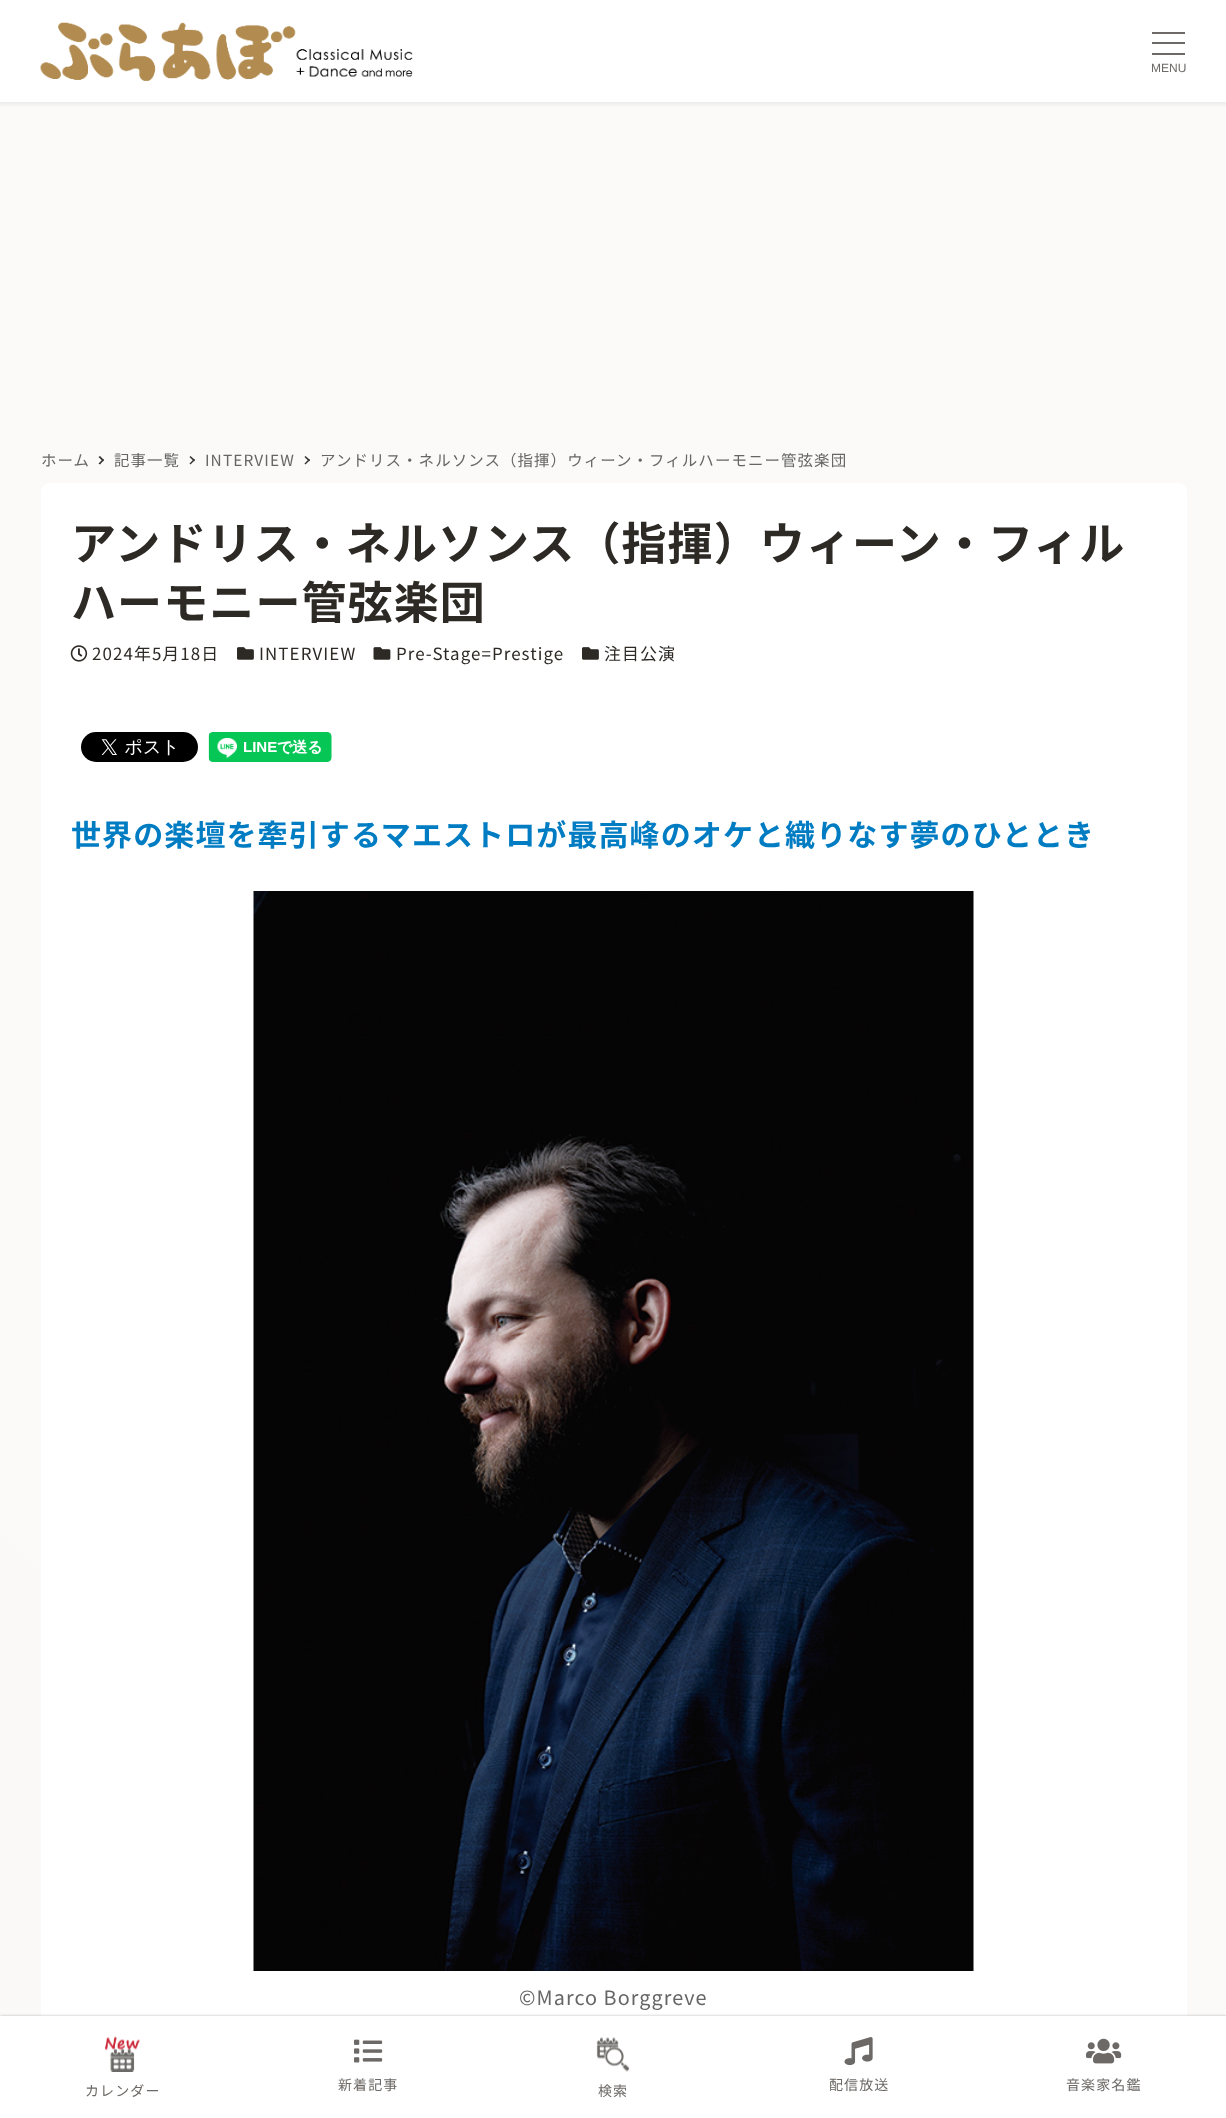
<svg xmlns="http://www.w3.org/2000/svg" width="1226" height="2118">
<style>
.a{font:12px Liberation Sans;fill:#6c6966}
.b{font:15.45px Noto Sans JP;letter-spacing:1.1px;fill:#666}
.c{font:bold 45px Noto Sans JP;letter-spacing:1.1px;fill:#2d2925}
.d{font:16.9px Noto Sans JP;letter-spacing:1.1px;fill:#2d2925}
.e{font:bold 30px Noto Sans JP;letter-spacing:1.1px;fill:#007cc3}
.f{font:19.75px Noto Sans JP;letter-spacing:1.1px;fill:#666}
.g{font:14px Noto Sans JP;letter-spacing:1.1px;fill:#6c6966}
</style>
<defs>
<linearGradient id="g1" gradientUnits="userSpaceOnUse" x1="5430" y1="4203" x2="-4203" y2="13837"><stop offset="0" stop-color="#fbfaf9"/><stop offset="1" stop-color="#f8f7f6"/></linearGradient>
</defs>
<rect width="100%" height="100%" fill="#fff"/>
<path fill="url(#g1)" d="M0 102h1226v1914H0z"/>
<path fill="#0000000d" filter="blur(1.5px)" d="M-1 0h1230v105H-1z"/>
<path fill="#fff" d="M0 0h1226v102H0z"/>
<image href="1.png" x="40" y="22" width="373" height="59"/>
<path fill="#6c6966" d="M1152 32h33v2H1152z"/>
<path fill="#6c6966" d="M1152 42h33v2H1152z"/>
<path fill="#6c6966" d="M1152 53h33v2H1152z"/>
<path fill="#333" d="M100 456l4 4l-1 1.5l-4.5-4.5z"/>
<path fill="#333" d="M103 459l1 1l-4 4.5l-1.5-1z"/>
<path fill="#333" d="M190.5 456l4.5 4l-1 1.5l-4.5-4.5z"/>
<path fill="#333" d="M194 459l1 1l-4.5 4.5l-1-1z"/>
<path fill="#333" d="M305.5 456l4.5 4l-1 1.5l-4.5-4.5z"/>
<path fill="#333" d="M309 459l1 1l-4.5 4.5l-1-1z"/>
<path fill="#fff" d="M50 483h1128c5 0 9 4 9 9v176h-1146v-176c0-5 4-9 9-9z"/>
<image href="2.png" x="70" y="645" width="18" height="17"/>
<image href="3.png" x="237" y="647" width="17" height="13"/>
<image href="4.png" x="373" y="647" width="18" height="13"/>
<image href="3.png" x="582" y="647" width="17" height="13"/>
<path fill="#fff" d="M41 668h1146v1348H41z"/>
<image href="5.png" x="81" y="732" width="117" height="30"/>
<image href="6.png" x="208" y="732" width="124" height="30"/>
<image href="7.png" x="253" y="891" width="721" height="1080"/>
<path fill="#00000040" filter="blur(1.5px)" d="M0 2016h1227v102H0z"/>
<path fill="#fff" d="M0 2016h1226v102H0z"/>
<image href="8.png" x="105" y="2036" width="35" height="36"/>
<image href="9.png" x="354" y="2039" width="29" height="24"/>
<image href="10.png" x="596" y="2037" width="34" height="35"/>
<image href="11.png" x="844" y="2037" width="29" height="29"/>
<image href="12.png" x="1086" y="2038" width="36" height="26"/>
<text class="a" x="1151" y="72">MENU</text>
<text class="b" x="41" y="466">ホーム</text>
<text class="b" x="114" y="466">記事一覧</text>
<text class="b" x="205" y="466">INTERVIEW</text>
<text class="b" x="320" y="466">アンドリス・ネルソンス（指揮）ウィーン・フィルハーモニー管弦楽団</text>
<text class="c" x="71" y="560">アンドリス・ネルソンス（指揮）ウィーン・フィル</text>
<text class="c" x="71" y="619">ハーモニー管弦楽団</text>
<text class="d" x="92" y="660">2024年5月18日</text>
<text class="d" x="259" y="660">INTERVIEW</text>
<text class="d" x="396" y="660">Pre-Stage=Prestige</text>
<text class="d" x="604" y="660">注目公演</text>
<text class="e" x="71" y="846">世界の楽壇を牽引するマエストロが最高峰のオケと織りなす夢のひととき</text>
<text class="f" x="519" y="2005">©Marco Borggreve</text>
<text class="g" x="85" y="2096">カレンダー</text>
<text class="g" x="338" y="2090">新着記事</text>
<text class="g" x="598" y="2096">検索</text>
<text class="g" x="829" y="2090">配信放送</text>
<text class="g" x="1066" y="2090">音楽家名鑑</text>
</svg>
